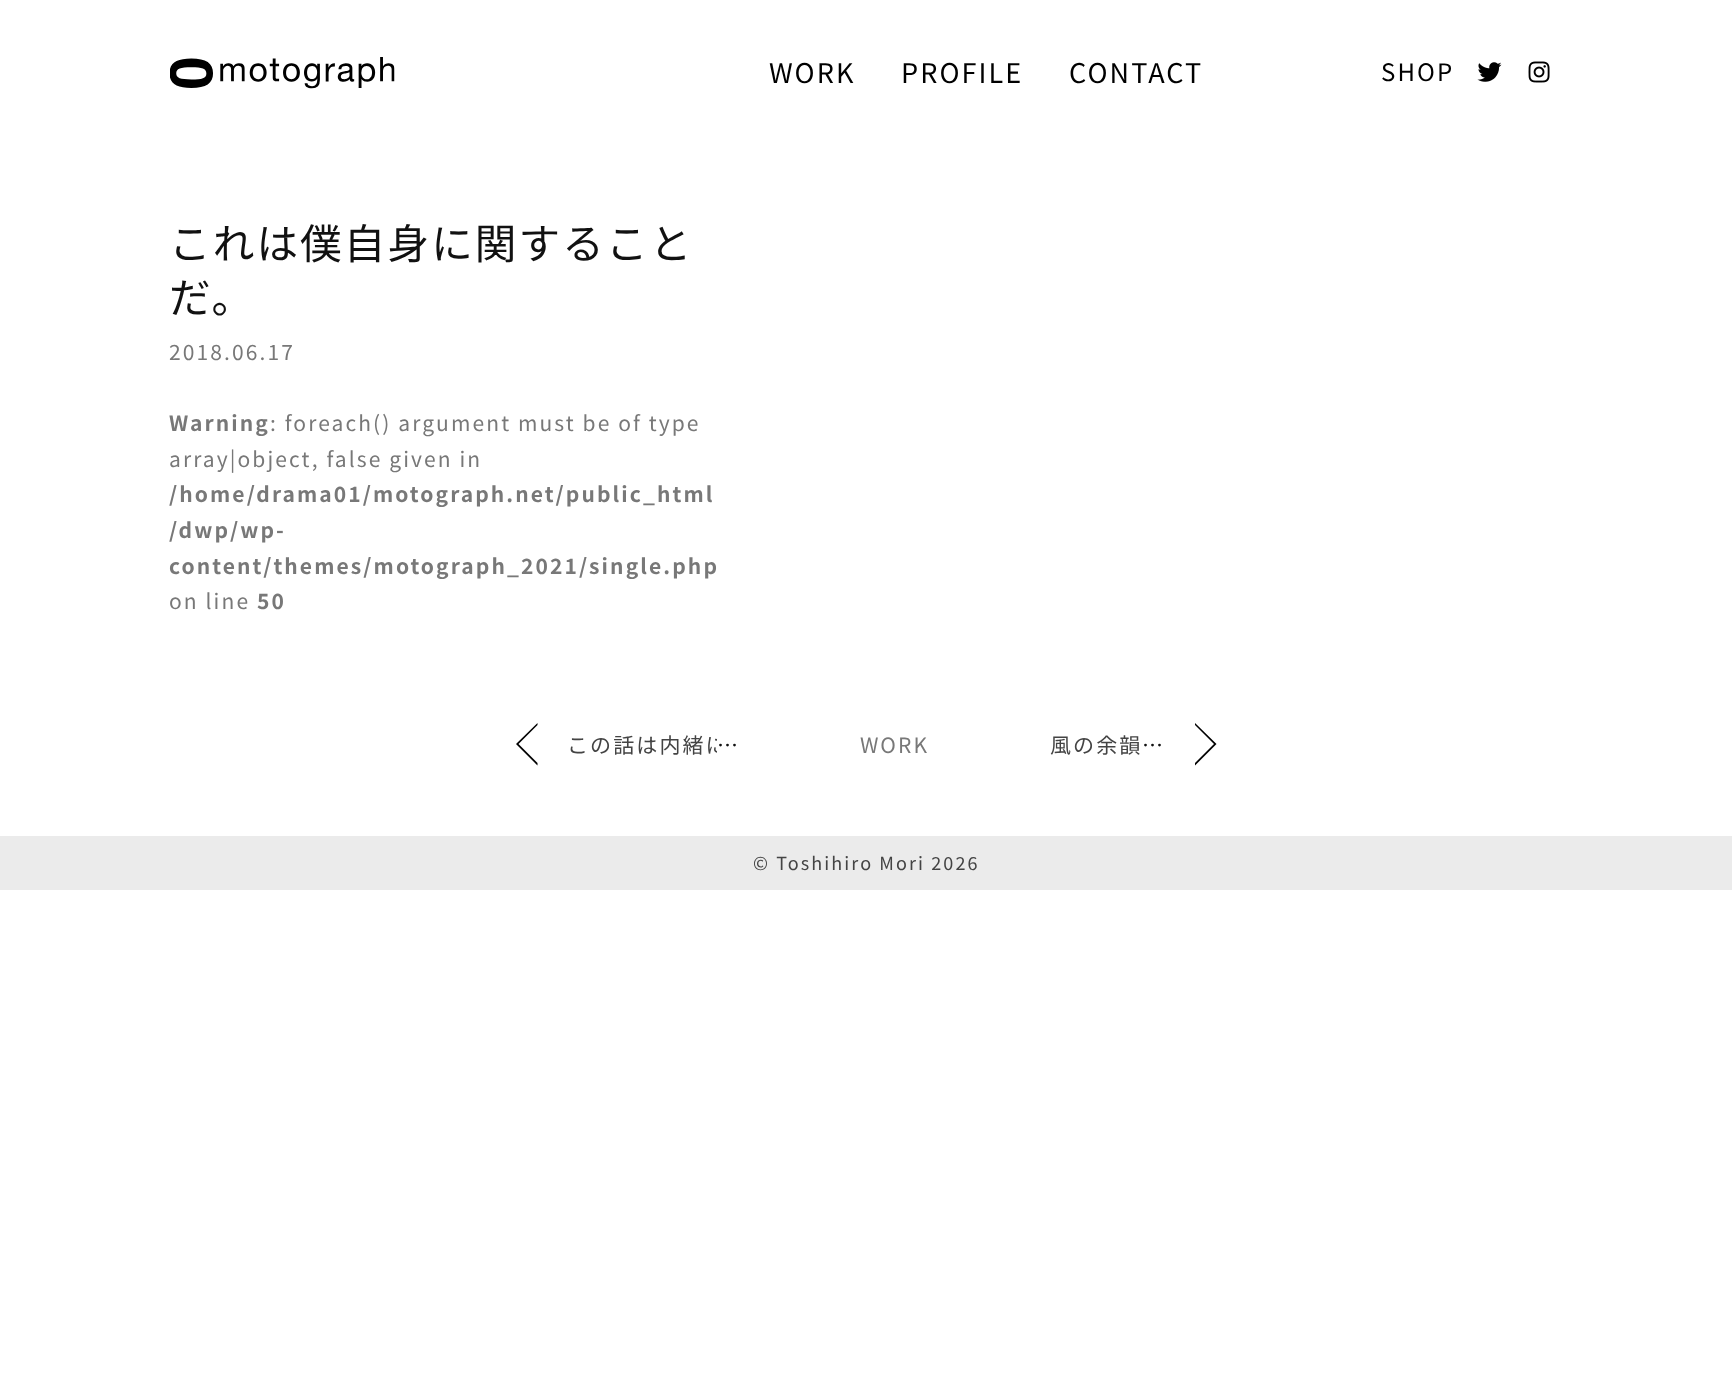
<svg xmlns="http://www.w3.org/2000/svg" width="1732" height="1380">
<style>
.a{font:27px Noto Sans JP;letter-spacing:2.1px;fill:#000}
.b{font:24px Noto Sans JP;letter-spacing:2.1px;fill:#000}
.c{font:41.6px Noto Sans JP;letter-spacing:2.1px;fill:#111}
.d{font:21px Noto Sans JP;letter-spacing:2.1px;fill:#787878}
.e{font:bold 21px Noto Sans JP;letter-spacing:2.1px;fill:#787878}
.f{font:21px Noto Sans JP;letter-spacing:2.1px;fill:#444}
.g{font:21px Noto Sans JP;letter-spacing:2.1px;fill:#111}
.h{font:18px Noto Sans JP;letter-spacing:2.1px;fill:#444}
</style>
<defs>
<clipPath id="clip1"><path d="M567 728h150v36H567z"/></clipPath>
</defs>
<rect width="100%" height="100%" fill="#fff"/>
<image href="1.png" x="170" y="57" width="225" height="32"/>
<image href="2.png" x="1477" y="62" width="25" height="20"/>
<image href="3.png" x="1528" y="61" width="22" height="22"/>
<path fill="#000" d="M516 744l21.5-21v2l-19 19zm21.5 21.5l-21.5-21.5h2.5l19 19z"/>
<path fill="#000" d="M1195 723l21.5 21h-2.5l-19-19zm21.5 21l-21.5 21.5v-2.5l19-19z"/>
<path fill="#ebebeb" d="M0 836h1732v54H0z"/>
<text class="a" x="769" y="83">WORK</text>
<text class="a" x="901" y="83">PROFILE</text>
<text class="a" x="1069" y="83">CONTACT</text>
<text class="b" x="1381" y="81">SHOP</text>
<text class="c" x="169" y="259">これは僕自身に関すること</text>
<text class="c" x="169" y="313">だ。</text>
<text class="d" x="169" y="360">2018.06.17</text>
<text class="e" x="169" y="431">Warning</text>
<text class="d" x="270" y="431">: foreach() argument must be of type</text>
<text class="d" x="169" y="467">array|object, false given in</text>
<text class="e" x="169" y="502">/home/drama01/motograph.net/public_html</text>
<text class="e" x="169" y="538">/dwp/wp-</text>
<text class="e" x="169" y="574">content/themes/motograph_2021/single.php</text>
<text class="d" x="169" y="609">on line</text>
<text class="e" x="257" y="609">50</text>
<g clip-path="url(#clip1)">
<text class="f" x="567" y="753">この話は内緒に</text>
</g>
<text class="g" x="717" y="753">…</text>
<text class="d" x="860" y="753">WORK</text>
<text class="f" x="1050" y="753">風の余韻</text>
<text class="g" x="1142" y="753">…</text>
<text class="h" x="753" y="870">© Toshihiro Mori 2026</text>
</svg>
